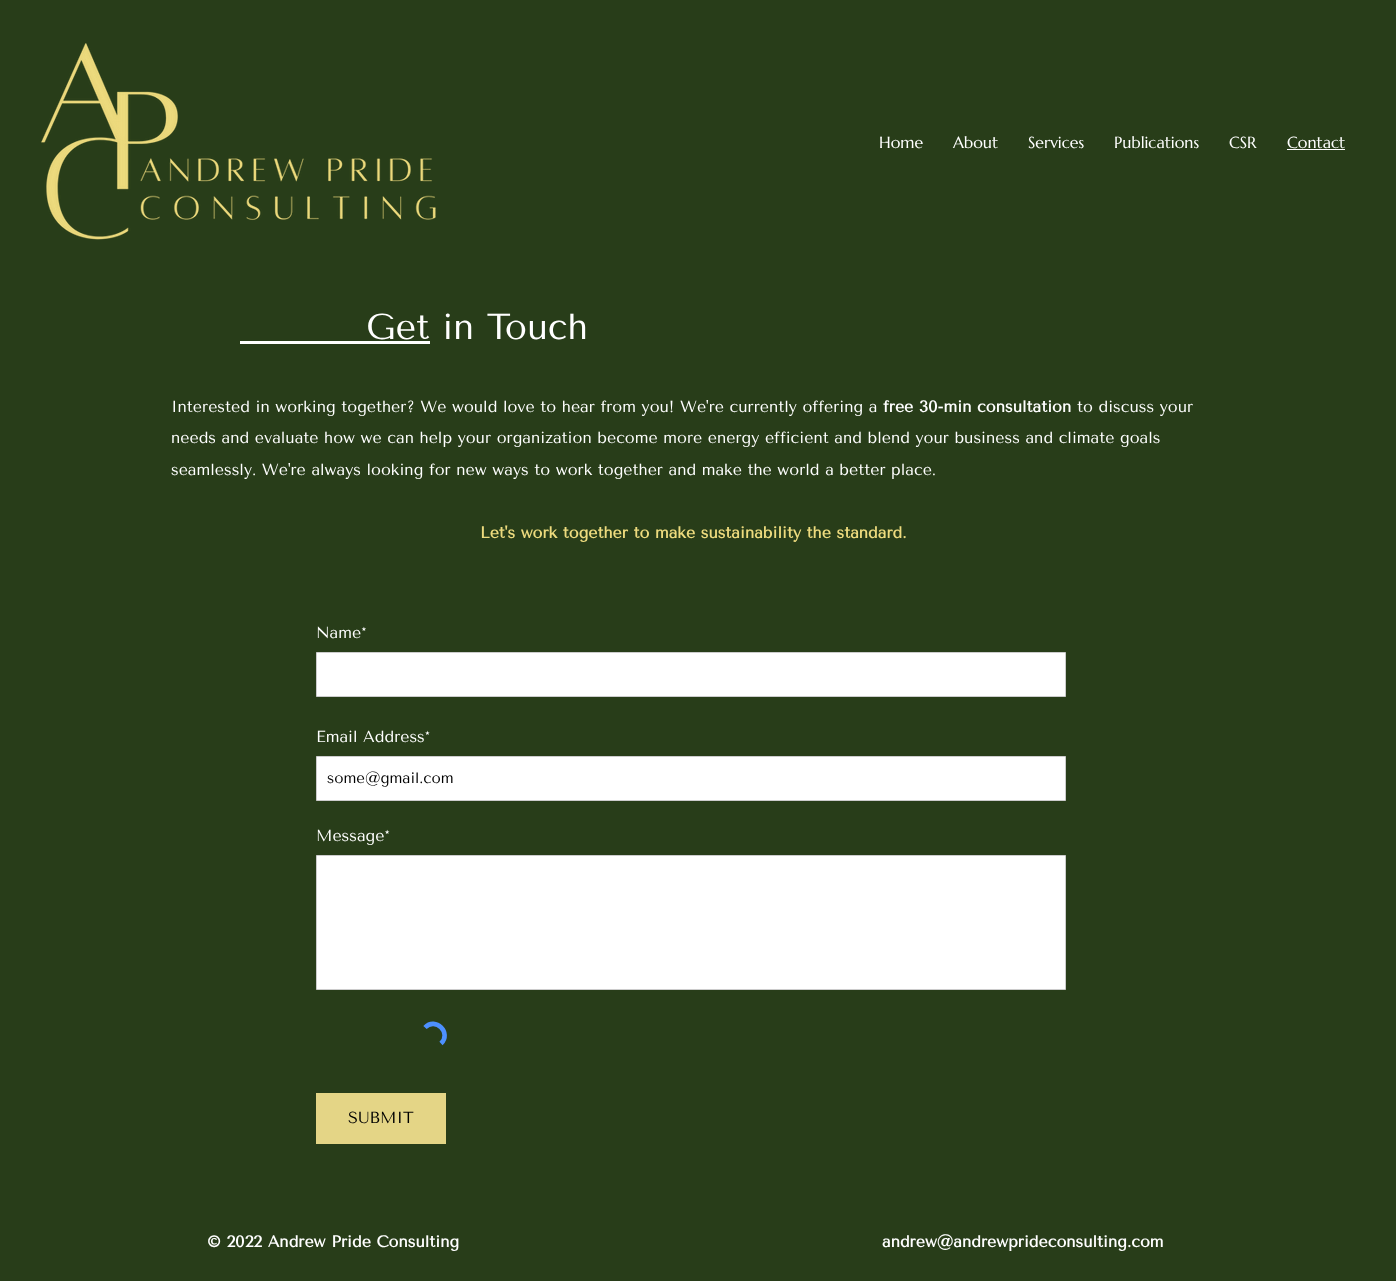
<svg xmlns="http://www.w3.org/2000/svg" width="1396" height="1281">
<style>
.a{font:16px Marcellus;fill:#fff}
.b{font:36px Tenor Sans;fill:#fff}
.c{font:16px Tenor Sans;fill:#fff}
.d{font:bold 16px Tenor Sans;fill:#fff}
.e{font:bold 16px Tenor Sans;fill:#eddb7e}
.f{font:15px Tenor Sans;fill:#000}
.g{font:16px Tenor Sans;fill:#000}
</style>
<rect width="100%" height="100%" fill="#283d19"/>
<image href="1.png" x="41" y="43" width="395" height="197"/>
<path fill="#fff" d="M1287 149h58v1H1287z"/>
<path fill="#fff" d="M240 341h190v3H240z"/>
<path fill="#fff" stroke="#ccc" d="M316.5 652.5h749v44H316.5z"/>
<path fill="#fff" stroke="#ccc" d="M316.5 756.5h749v44H316.5z"/>
<path fill="#fff" stroke="#ccc" d="M316.5 855.5h749v134H316.5z"/>
<path fill="none" stroke="#4d90fe" stroke-width="4.6" d="M425 1027.5c10.5-11 27 5.5 16 16"/>
<path fill="#e4d586" d="M316 1093h130v51H316z"/>
<text class="a" x="879" y="148">Home</text>
<text class="a" x="953" y="148">About</text>
<text class="a" x="1028" y="148">Services</text>
<text class="a" x="1114" y="148">Publications</text>
<text class="a" x="1229" y="148">CSR</text>
<text class="a" x="1287" y="148">Contact</text>
<text class="b" x="366" y="339">Get in Touch</text>
<text class="c" x="171" y="412">Interested in working together? We would love to hear from you! We're currently offering a</text>
<text class="d" x="883" y="412">free 30-min consultation</text>
<text class="c" x="1077" y="412">to discuss your</text>
<text class="c" x="171" y="443">needs and evaluate how we can help your organization become more energy efficient and blend your business and climate goals</text>
<text class="c" x="171" y="475">seamlessly. We're always looking for new ways to work together and make the world a better place.</text>
<text class="e" x="480" y="538">Let's work together to make sustainability the standard.</text>
<text class="c" x="316" y="638">Name*</text>
<text class="c" x="316" y="742">Email Address*</text>
<text class="f" x="327" y="783">some@gmail.com</text>
<text class="c" x="316" y="841">Message*</text>
<text class="g" x="348" y="1123">SUBMIT</text>
<text class="d" x="207" y="1247">© 2022 Andrew Pride Consulting</text>
<text class="d" x="882" y="1247">andrew@andrewprideconsulting.com</text>
</svg>
